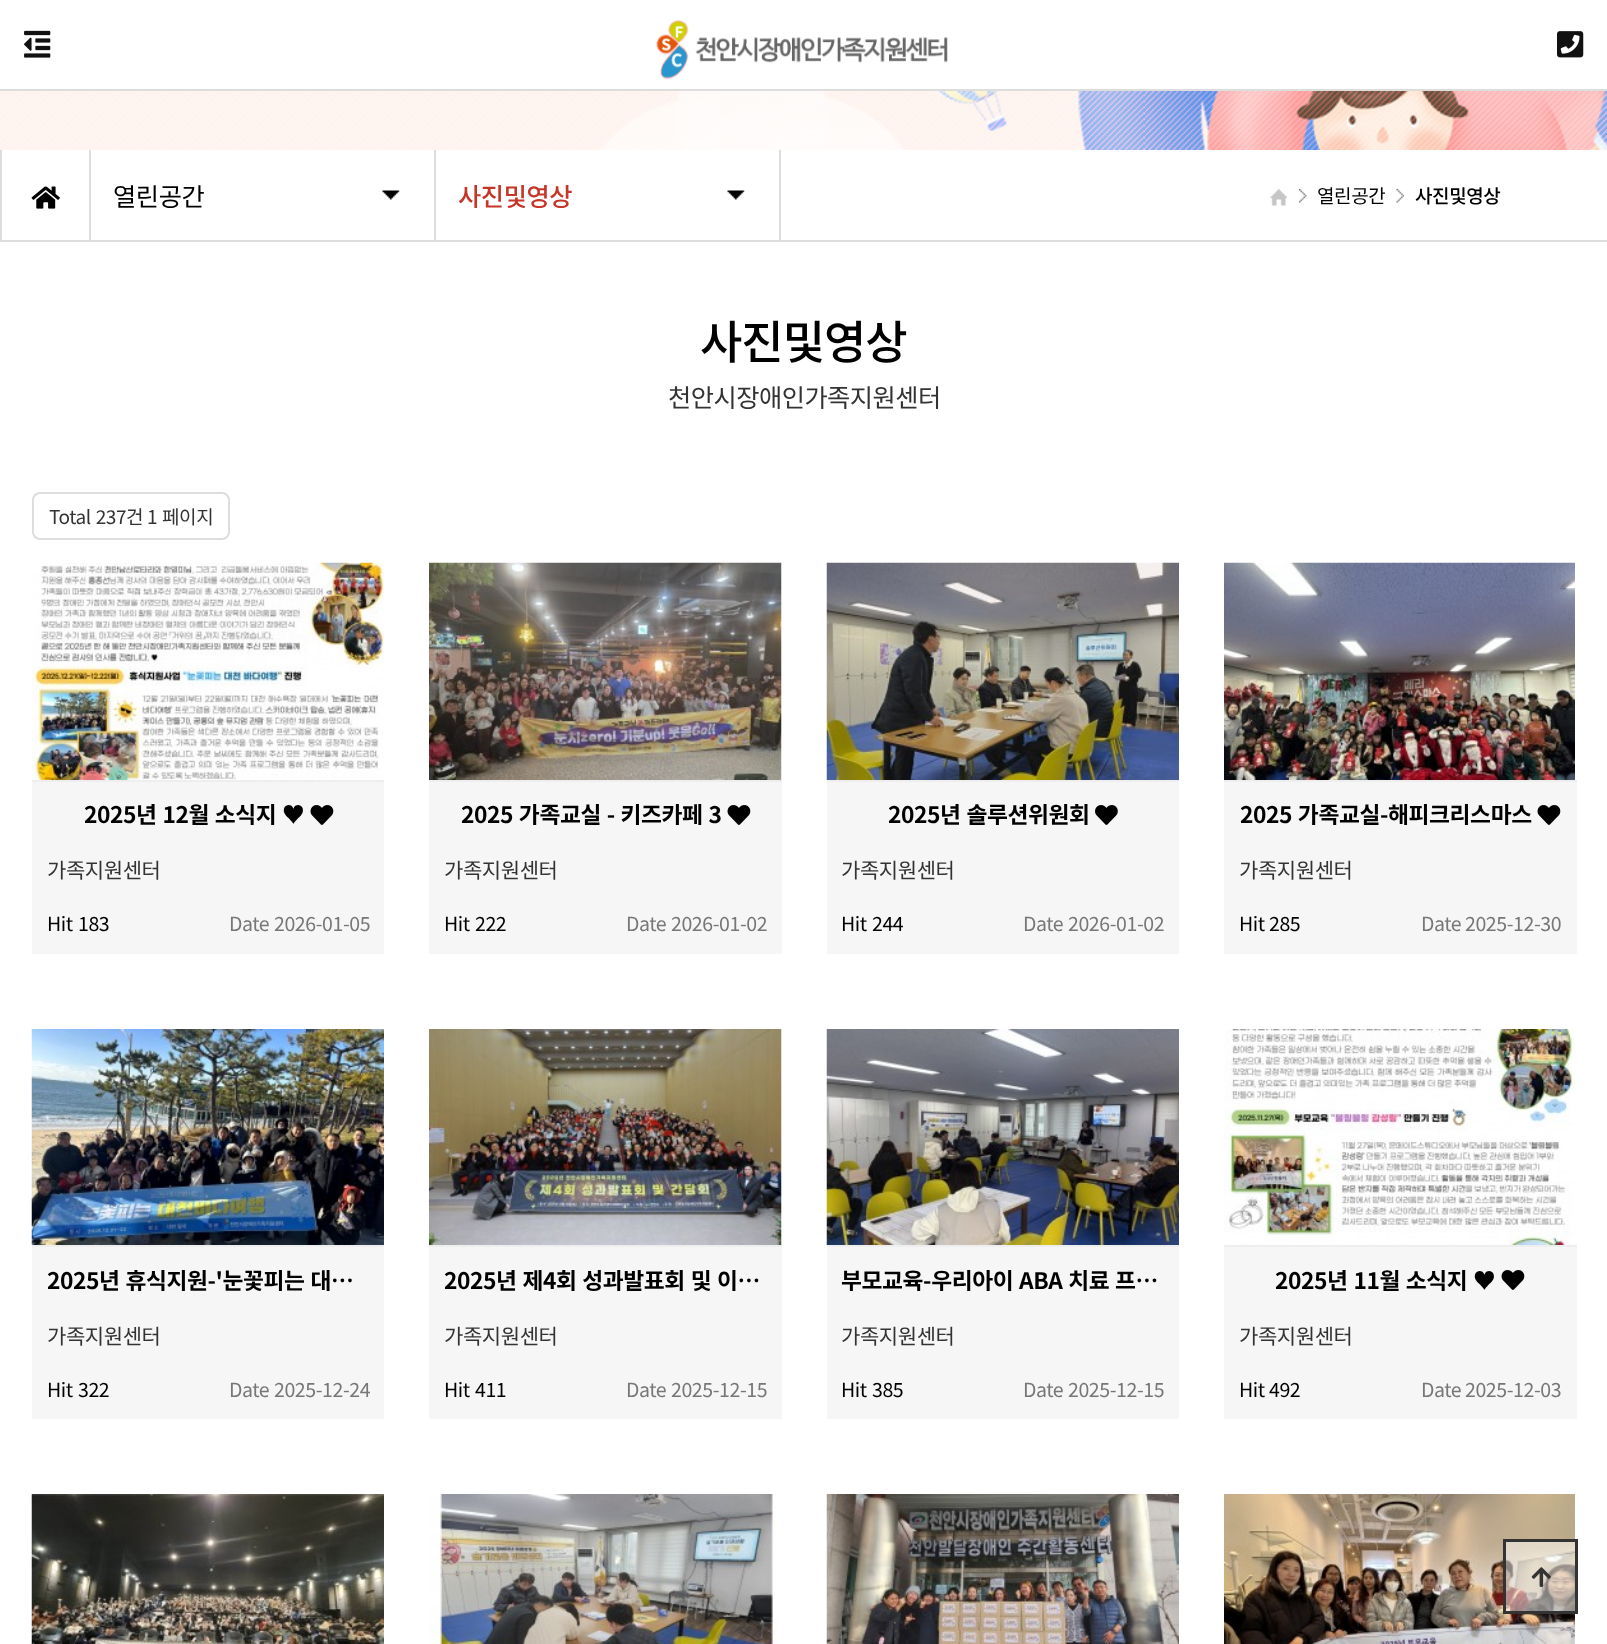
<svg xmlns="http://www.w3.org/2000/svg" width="1607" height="1644">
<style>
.a{font:25.25px Noto Sans KR;letter-spacing:-0.4px;fill:#000}
.b{font:500 25.25px Noto Sans KR;letter-spacing:-0.4px;fill:#c53528}
.c{font:19px Noto Sans KR;letter-spacing:-0.4px;fill:#000}
.d{font:500 19px Noto Sans KR;letter-spacing:-0.4px;fill:#000}
.e{font:500 46px Noto Sans KR;letter-spacing:-1px;fill:#000}
.f{font:25.25px Noto Sans KR;letter-spacing:-0.5px;fill:#333}
.g{font:19px Noto Sans KR;letter-spacing:-0.4px;fill:#333}
.h{font:bold 22.75px Noto Sans KR;letter-spacing:-0.4px;fill:#000}
.i{font:21px Noto Sans KR;letter-spacing:-0.4px;fill:#333}
.j{font:19.5px Noto Sans KR;letter-spacing:-0.4px;fill:#000}
.k{font:19.5px Noto Sans KR;letter-spacing:-0.4px;fill:#777}
</style>
<rect width="100%" height="100%" fill="#fff"/>
<path fill="#ddd" d="M0 89h1607v2H0z"/>
<image href="1.png" x="656" y="20" width="292" height="60"/>
<image href="2.png" x="24" y="30" width="27" height="28"/>
<image href="3.png" x="1557" y="31" width="27" height="27"/>
<image href="4.png" x="0" y="91" width="1607" height="59"/>
<path fill="#ddd" d="M0 240h1607v2H0z"/>
<path fill="#ddd" d="M89 150h2v90H89z"/>
<path fill="#ddd" d="M0 150h2v90H0z"/>
<image href="5.png" x="31" y="186" width="29" height="23"/>
<path fill="#ddd" d="M434 150h2v90H434z"/>
<image href="6.png" x="382" y="190" width="18" height="10"/>
<path fill="#ddd" d="M779 150h2v90H779z"/>
<image href="6.png" x="727" y="190" width="18" height="10"/>
<image href="7.png" x="1270" y="189" width="17" height="17"/>
<image href="8.png" x="1299" y="189" width="8" height="14"/>
<image href="9.png" x="1396" y="189" width="8" height="14"/>
<rect fill="none" stroke="#ddd" stroke-width="2" x="33" y="493" width="196" height="46" rx="7"/>
<path fill="#eee" d="M32 780h352v2H32z"/>
<image href="10.png" x="32" y="562" width="352" height="218"/>
<path fill="#f6f6f6" d="M32 782h352v172H32z"/>
<image href="11.png" x="310" y="805" width="24" height="20"/>
<path fill="#eee" d="M429 780h353v2H429z"/>
<image href="12.png" x="429" y="562" width="353" height="218"/>
<path fill="#f6f6f6" d="M429 782h353v172H429z"/>
<image href="11.png" x="727" y="805" width="24" height="20"/>
<path fill="#eee" d="M827 780h352v2H827z"/>
<image href="13.png" x="826" y="562" width="353" height="218"/>
<path fill="#f6f6f6" d="M827 782h352v172H827z"/>
<image href="14.png" x="1095" y="805" width="23" height="20"/>
<path fill="#eee" d="M1224 780h353v2H1224z"/>
<image href="15.png" x="1224" y="562" width="351" height="218"/>
<path fill="#f6f6f6" d="M1224 782h353v172H1224z"/>
<image href="11.png" x="1537" y="805" width="24" height="20"/>
<path fill="#eee" d="M32 1245h352v2H32z"/>
<image href="16.png" x="31" y="1029" width="353" height="216"/>
<path fill="#f6f6f6" d="M32 1247h352v172H32z"/>
<path fill="#eee" d="M429 1245h353v2H429z"/>
<image href="17.png" x="429" y="1029" width="353" height="216"/>
<path fill="#f6f6f6" d="M429 1247h353v172H429z"/>
<path fill="#eee" d="M827 1245h352v2H827z"/>
<image href="18.png" x="826" y="1029" width="353" height="216"/>
<path fill="#f6f6f6" d="M827 1247h352v172H827z"/>
<path fill="#eee" d="M1224 1245h353v2H1224z"/>
<image href="19.png" x="1224" y="1029" width="351" height="216"/>
<path fill="#f6f6f6" d="M1224 1247h353v172H1224z"/>
<image href="11.png" x="1501" y="1270" width="24" height="20"/>
<image href="20.png" x="31" y="1494" width="353" height="150"/>
<image href="21.png" x="429" y="1494" width="348" height="150"/>
<image href="22.png" x="826" y="1494" width="353" height="150"/>
<image href="23.png" x="1224" y="1494" width="351" height="150"/>
<path fill="#ffffff80" stroke="#333" stroke-width="3" d="M1504.5 1540.5h72v72H1504.5z"/>
<image href="24.png" x="1531" y="1567" width="20" height="20"/>
<text class="a" x="113" y="206">열린공간</text>
<text class="b" x="458" y="206">사진및영상</text>
<text class="c" x="1317" y="203">열린공간</text>
<text class="d" x="1415" y="203">사진및영상</text>
<text class="e" x="700" y="359">사진및영상</text>
<text class="f" x="668" y="407">천안시장애인가족지원센터</text>
<text class="g" x="49" y="524" word-spacing="1">Total 237건</text>
<text class="g" x="147" y="524" word-spacing="1">1 페이지</text>
<text class="h" x="84" y="823" word-spacing="1">2025년 12월 소식지 ♥</text>
<text class="i" x="47" y="878">가족지원센터</text>
<text class="j" x="47" y="931">Hit</text>
<text class="j" x="78" y="931">183</text>
<text class="k" x="229" y="931">Date</text>
<text class="k" x="274" y="931">2026-01-05</text>
<text class="h" x="461" y="823" word-spacing="1">2025 가족교실 - 키즈카페 3</text>
<text class="i" x="444" y="878">가족지원센터</text>
<text class="j" x="444" y="931">Hit</text>
<text class="j" x="475" y="931">222</text>
<text class="k" x="626" y="931">Date</text>
<text class="k" x="671" y="931">2026-01-02</text>
<text class="h" x="888" y="823" word-spacing="1">2025년 솔루션위원회</text>
<text class="i" x="841" y="878">가족지원센터</text>
<text class="j" x="841" y="931">Hit</text>
<text class="j" x="872" y="931">244</text>
<text class="k" x="1023" y="931">Date</text>
<text class="k" x="1068" y="931">2026-01-02</text>
<text class="h" x="1240" y="823" word-spacing="1">2025 가족교실-해피크리스마스</text>
<text class="i" x="1239" y="878">가족지원센터</text>
<text class="j" x="1239" y="931">Hit</text>
<text class="j" x="1269" y="931">285</text>
<text class="k" x="1421" y="931">Date</text>
<text class="k" x="1465" y="931">2025-12-30</text>
<text class="h" x="47" y="1289" word-spacing="1">2025년 휴식지원-'눈꽃피는 대…</text>
<text class="i" x="47" y="1344">가족지원센터</text>
<text class="j" x="47" y="1397">Hit</text>
<text class="j" x="78" y="1397">322</text>
<text class="k" x="229" y="1397">Date</text>
<text class="k" x="274" y="1397">2025-12-24</text>
<text class="h" x="444" y="1289" word-spacing="1">2025년 제4회 성과발표회 및 이…</text>
<text class="i" x="444" y="1344">가족지원센터</text>
<text class="j" x="444" y="1397">Hit</text>
<text class="j" x="475" y="1397">411</text>
<text class="k" x="626" y="1397">Date</text>
<text class="k" x="671" y="1397">2025-12-15</text>
<text class="h" x="841" y="1289" word-spacing="1">부모교육-우리아이 ABA 치료 프…</text>
<text class="i" x="841" y="1344">가족지원센터</text>
<text class="j" x="841" y="1397">Hit</text>
<text class="j" x="872" y="1397">385</text>
<text class="k" x="1023" y="1397">Date</text>
<text class="k" x="1068" y="1397">2025-12-15</text>
<text class="h" x="1275" y="1289" word-spacing="1">2025년 11월 소식지 ♥</text>
<text class="i" x="1239" y="1344">가족지원센터</text>
<text class="j" x="1239" y="1397">Hit</text>
<text class="j" x="1269" y="1397">492</text>
<text class="k" x="1421" y="1397">Date</text>
<text class="k" x="1465" y="1397">2025-12-03</text>
</svg>
